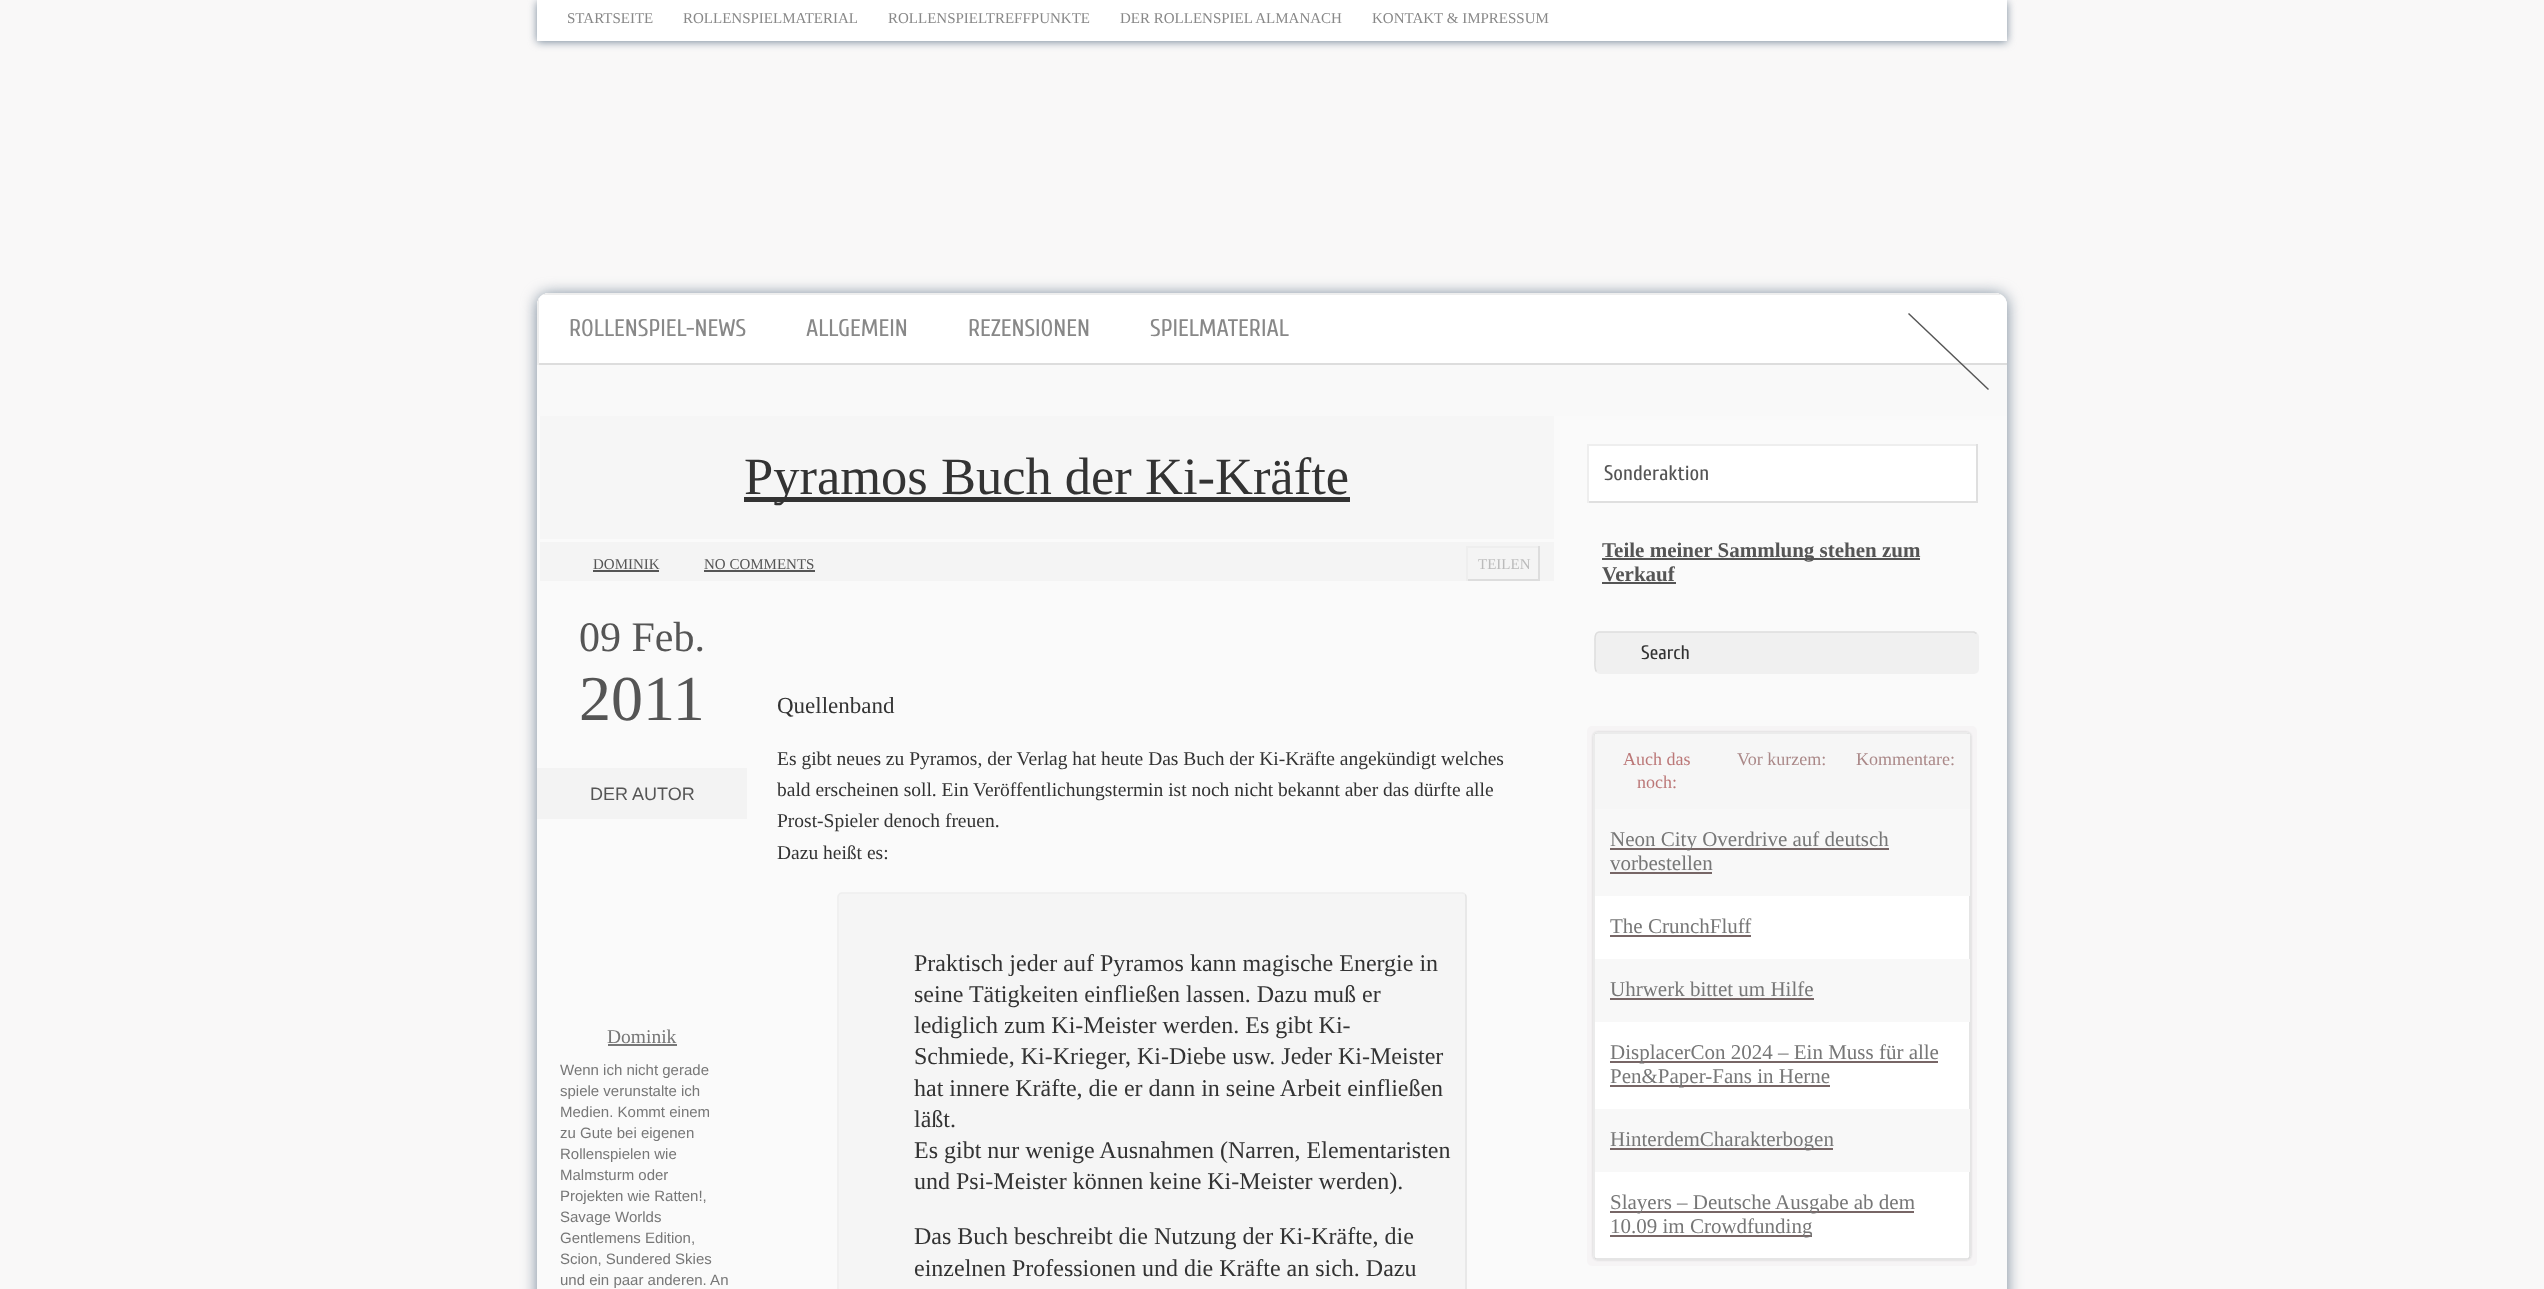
<svg xmlns="http://www.w3.org/2000/svg" width="2544" height="1289">
<style>
.a{font:15px Liberation Serif;fill:#888}
.b{font:24px Cuprum;fill:#888}
.c{font:52.5px Liberation Serif;fill:#333}
.d{font:15px Liberation Serif;fill:#555}
.e{font:15px Liberation Serif;fill:#bbb}
.f{font:42px Liberation Serif;fill:#555}
.g{font:64px Liberation Serif;fill:#555}
.h{font:18px Liberation Sans;fill:#555}
.i{font:19.5px Liberation Serif;fill:#777}
.j{font:15px Liberation Sans;fill:#777}
.k{font:23px Liberation Serif;fill:#333}
.l{font:19.5px Liberation Serif;fill:#333}
.m{font:24px Liberation Serif;fill:#333}
.n{font:21px Cuprum;fill:#555}
.o{font:bold 21px Liberation Serif;fill:#555}
.p{font:19.5px Cuprum;fill:#333}
.q{font:18px Liberation Serif;fill:#b77}
.r{font:18px Liberation Serif;fill:#a88}
.s{font:21px Liberation Serif;fill:#777}
</style>
<defs>
<clipPath id="clip1"><rect x="537" y="293" width="1470" height="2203" rx="12"/></clipPath>
</defs>
<rect width="100%" height="100%" fill="#f9f8f8"/>
<path fill="#789" filter="blur(4px)" d="M537 2h1470v40H537z"/>
<path fill="#fff" d="M537 0h1470v41H537z"/>
<rect fill="#789" filter="blur(7.5px)" x="537" y="294" width="1470" height="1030" rx="12"/>
<rect fill="#fafafa" x="537" y="293" width="1470" height="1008" rx="12"/>
<path fill="#f9f9f9" d="M549 293h1446c6.5 0 12 5.5 12 12v111h-1470v-111c0-6.5 5.5-12 12-12z"/>
<path fill="#fff" d="M549 293h1446c6.5 0 12 5.5 12 12v60h-1470v-60c0-6.5 5.5-12 12-12z"/>
<g clip-path="url(#clip1)">
<path fill="#eee" d="M537 293h1470v2H537z"/>
</g>
<path fill="#ddd" d="M537 363h1470v2H537z"/>
<g clip-path="url(#clip1)">
<path fill="#eee" d="M537 293h2v72H537z"/>
</g>
<path fill="#555" d="M1909 313l80 76l-1 1l-80-76z"/>
<path fill="#f6f6f6" d="M540 416h1014v123H540z"/>
<path fill="#333" d="M744 497h606v5H744z"/>
<path fill="#f4f4f4" d="M540 542h1014v39H540z"/>
<path fill="#555" d="M593 570h66v2H593z"/>
<path fill="#555" d="M704 570h111v2H704z"/>
<path fill="#eee" d="M1466 546h73v2H1466z"/>
<path fill="#ddd" d="M1538 546h2v35H1538z"/>
<path fill="#ddd" d="M1466 579h73v2H1466z"/>
<path fill="#eee" d="M1466 546h2v35H1466z"/>
<path fill="#f3f3f3" d="M537 768h210v51H537z"/>
<path fill="#777" d="M608 1044h69v2H608z"/>
<rect fill="#f5f5f5" x="837" y="893" width="630" height="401" rx="5"/>
<path fill="none" stroke="#e3e3e3" stroke-width="1.5" d="M1465 894.5c1 .5 1 1.5 1 2.5v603c0 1 0 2-1 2.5c-.5 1-1.5 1.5-2.5 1.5h-621c-1 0-2-.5-2.5-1.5"/>
<path fill="none" stroke="#eee" stroke-width="1.5" d="M839 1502.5c-1-.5-1-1.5-1-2.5v-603c0-1 0-2 1-2.5c.5-1 1.5-1.5 2.5-1.5h621c1 0 2 .5 2.5 1.5"/>
<path fill="#fff" d="M1589 446h387v55H1589z"/>
<path fill="#eee" d="M1587 444h390v2H1587z"/>
<path fill="#dfdfdf" d="M1976 444h2v59H1976z"/>
<path fill="#dfdfdf" d="M1587 501h390v2H1587z"/>
<path fill="#eee" d="M1587 444h2v59H1587z"/>
<path fill="#555" d="M1602 558h318v2H1602z"/>
<path fill="#555" d="M1602 582h74v2H1602z"/>
<rect fill="#f0f0f0" x="1595" y="632" width="384" height="42" rx="5"/>
<path fill="none" stroke="#ddd" stroke-width="1.5" d="M1596.5 671.5c-2.5-2.5-1.5-11-1.5-13.5v-16.5c0-3-1-9 4-9.5h375l2.5 1.5"/>
<rect fill="#f6f4f5" x="1587" y="726" width="390" height="540" rx="5"/>
<rect fill="#ccc" filter="blur(1px)" x="1593" y="732" width="378" height="528" rx="5"/>
<rect fill="#fff" x="1593" y="732" width="378" height="528" rx="5"/>
<path fill="none" stroke="#ddd" stroke-width="1.5" d="M1969 734c1 .5 1 1.5 1 2.5v519c0 1 0 2-1 2.5c-.5 1-1.5 1-2.5 1h-369c-1 0-2 0-2.5-1"/>
<path fill="none" stroke="#e5e5e5" stroke-width="1.5" d="M1595 1258c-1-.5-1-1.5-1-2.5v-519c0-1 0-2 1-2.5c.5-1 1.5-1 2.5-1h369c1 0 2 0 2.5 1"/>
<path fill="#f6f6f6" d="M1595 734h375v75H1595z"/>
<path fill="#f8f8f8" d="M1595 809h375v87H1595z"/>
<path fill="#766" d="M1610 848h279v2H1610z"/>
<path fill="#766" d="M1610 872h102v2H1610z"/>
<path fill="#766" d="M1610 935h141v2H1610z"/>
<path fill="#f8f8f8" d="M1595 959h375v63H1595z"/>
<path fill="#766" d="M1610 998h204v2H1610z"/>
<path fill="#766" d="M1610 1061h328v2H1610z"/>
<path fill="#766" d="M1610 1085h220v2H1610z"/>
<path fill="#f8f8f8" d="M1595 1109h375v63H1595z"/>
<path fill="#766" d="M1610 1148h223v2H1610z"/>
<path fill="#766" d="M1610 1211h304v2H1610z"/>
<path fill="#766" d="M1610 1235h202v2H1610z"/>
<text class="a" x="567" y="23">STARTSEITE</text>
<text class="a" x="683" y="23">ROLLENSPIELMATERIAL</text>
<text class="a" x="888" y="23">ROLLENSPIELTREFFPUNKTE</text>
<text class="a" x="1120" y="23">DER ROLLENSPIEL ALMANACH</text>
<text class="a" x="1372" y="23">KONTAKT &amp; IMPRESSUM</text>
<text class="b" x="569" y="336">ROLLENSPIEL-NEWS</text>
<text class="b" x="806" y="336">ALLGEMEIN</text>
<text class="b" x="968" y="336">REZENSIONEN</text>
<text class="b" x="1150" y="336">SPIELMATERIAL</text>
<text class="c" x="744" y="494">Pyramos Buch der Ki-Kräfte</text>
<text class="d" x="593" y="569">DOMINIK</text>
<text class="d" x="704" y="569">NO COMMENTS</text>
<text class="e" x="1478" y="569">TEILEN</text>
<text class="f" x="579" y="651">09 Feb.</text>
<text class="g" x="579" y="720">2011</text>
<text class="h" x="590" y="800">DER AUTOR</text>
<text class="i" x="607" y="1043">Dominik</text>
<text class="j" x="560" y="1075">Wenn ich nicht gerade</text>
<text class="j" x="560" y="1096">spiele verunstalte ich</text>
<text class="j" x="560" y="1117">Medien. Kommt einem</text>
<text class="j" x="560" y="1138">zu Gute bei eigenen</text>
<text class="j" x="560" y="1159">Rollenspielen wie</text>
<text class="j" x="560" y="1180">Malmsturm oder</text>
<text class="j" x="560" y="1201">Projekten wie Ratten!,</text>
<text class="j" x="560" y="1222">Savage Worlds</text>
<text class="j" x="560" y="1243">Gentlemens Edition,</text>
<text class="j" x="560" y="1264">Scion, Sundered Skies</text>
<text class="j" x="560" y="1285">und ein paar anderen. An</text>
<text class="k" x="777" y="713">Quellenband</text>
<text class="l" x="777" y="765">Es gibt neues zu Pyramos, der Verlag hat heute Das Buch der Ki-Kräfte angekündigt welches</text>
<text class="l" x="777" y="796">bald erscheinen soll. Ein</text>
<text class="l" x="973" y="796">Veröffentlichungstermin ist noch nicht bekannt aber das dürfte alle</text>
<text class="l" x="777" y="827">Prost-Spieler denoch freuen.</text>
<text class="l" x="777" y="859">Dazu heißt es:</text>
<text class="m" x="914" y="971">Praktisch jeder auf Pyramos kann magische Energie in</text>
<text class="m" x="914" y="1002">seine Tätigkeiten einfließen lassen. Dazu muß er</text>
<text class="m" x="914" y="1033">lediglich zum Ki-Meister werden. Es gibt Ki-</text>
<text class="m" x="914" y="1064">Schmiede, Ki-Krieger, Ki-Diebe usw. Jeder Ki-Meister</text>
<text class="m" x="914" y="1096">hat innere Kräfte, die er dann in seine Arbeit einfließen</text>
<text class="m" x="914" y="1127">läßt.</text>
<text class="m" x="914" y="1158">Es gibt nur wenige Ausnahmen (Narren, Elementaristen</text>
<text class="m" x="914" y="1189">und Psi-Meister können keine Ki-Meister werden).</text>
<text class="m" x="914" y="1244">Das Buch beschreibt die Nutzung der Ki-Kräfte, die</text>
<text class="m" x="914" y="1276">einzelnen Professionen und die Kräfte an sich. Dazu</text>
<text class="n" x="1604" y="480">Sonderaktion</text>
<text class="o" x="1602" y="557">Teile meiner Sammlung stehen zum</text>
<text class="o" x="1602" y="581">Verkauf</text>
<text class="p" x="1641" y="659">Search</text>
<text class="q" x="1623" y="765">Auch das</text>
<text class="q" x="1637" y="788">noch:</text>
<text class="r" x="1737" y="765">Vor kurzem:</text>
<text class="r" x="1856" y="765">Kommentare:</text>
<text class="s" x="1610" y="846">Neon City Overdrive auf deutsch</text>
<text class="s" x="1610" y="870">vorbestellen</text>
<text class="s" x="1610" y="933">The CrunchFluff</text>
<text class="s" x="1610" y="996">Uhrwerk bittet um Hilfe</text>
<text class="s" x="1610" y="1059">DisplacerCon 2024 – Ein Muss für alle</text>
<text class="s" x="1610" y="1083">Pen&amp;Paper-Fans in Herne</text>
<text class="s" x="1610" y="1146">HinterdemCharakterbogen</text>
<text class="s" x="1610" y="1209">Slayers – Deutsche Ausgabe ab dem</text>
<text class="s" x="1610" y="1233">10.09 im Crowdfunding</text>
</svg>
